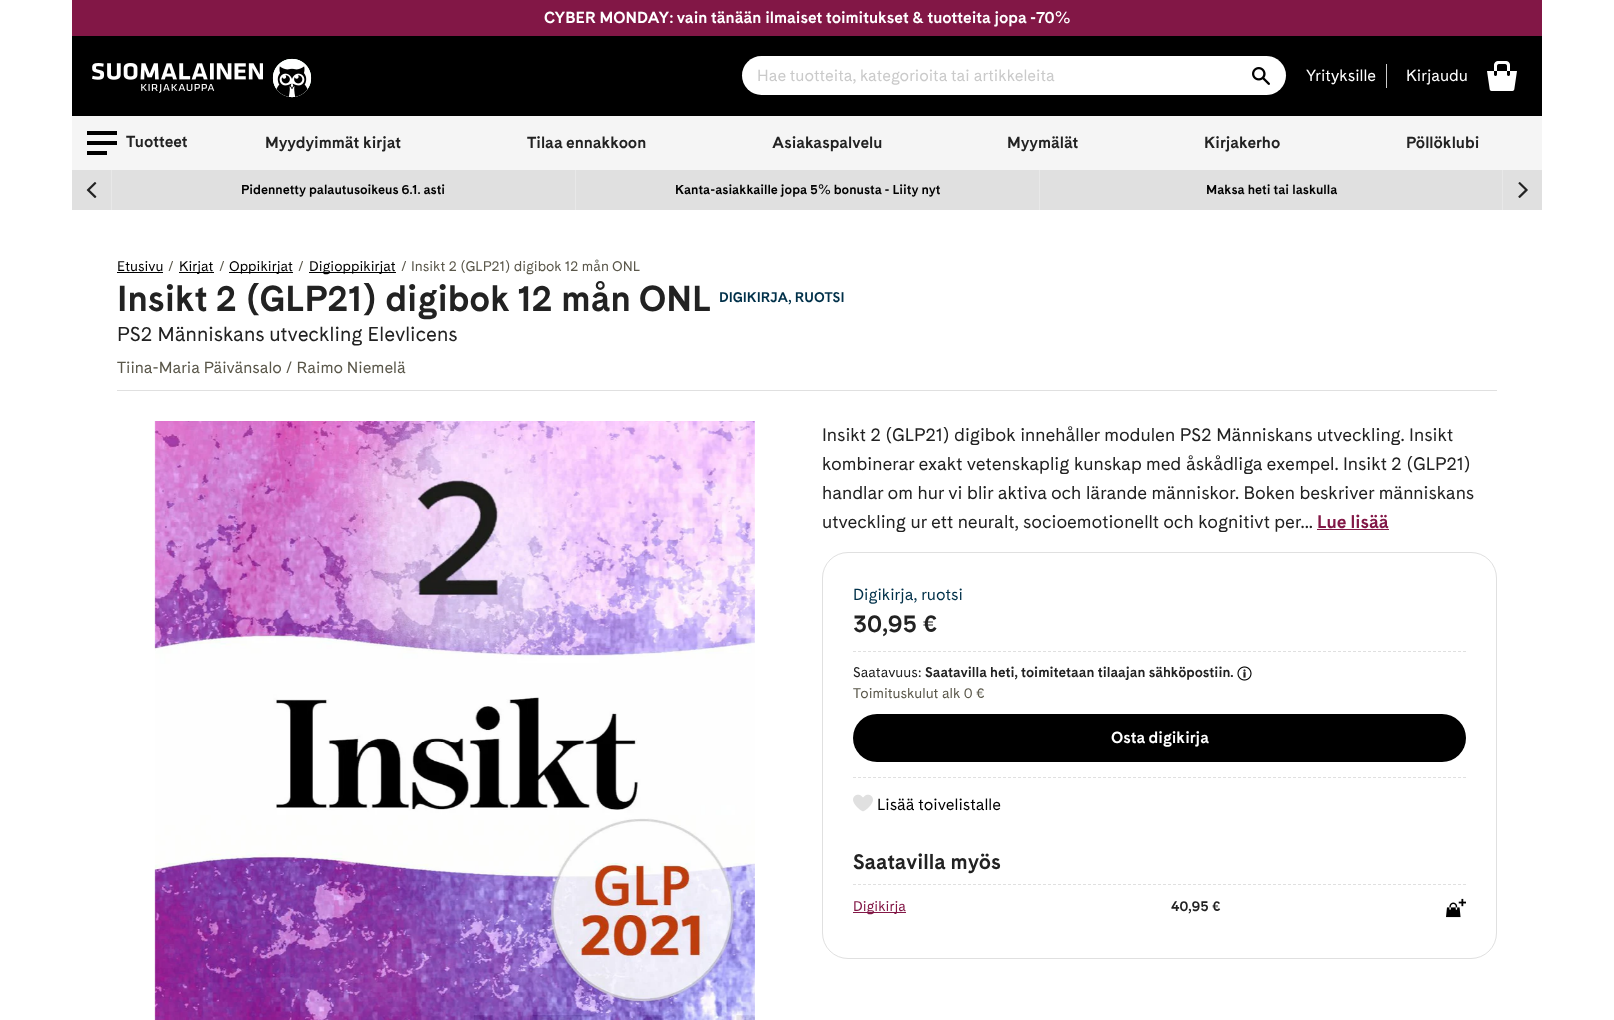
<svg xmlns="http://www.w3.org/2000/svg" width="1614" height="1020">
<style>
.a{font:bold 16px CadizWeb;fill:#fff}
.b{font:16px CadizWeb;fill:#cacaca}
.c{font:16px CadizWeb;fill:#fff}
.d{font:bold 16px CadizWeb;fill:#222}
.e{font:bold 13px CadizWeb;fill:#000}
.f{font:14px CadizWeb;fill:#000}
.g{font:14px CadizWeb;fill:#5a574a}
.h{font:bold 36px CadizWeb;fill:#222}
.i{font:bold 14px CadizWeb;fill:#003049}
.j{font:20px CadizWeb;fill:#222}
.k{font:16px CadizWeb;fill:#5a574a}
.l{font:18px CadizWeb;fill:#222}
.m{font:bold 18px CadizWeb;fill:#821746}
.n{font:16px CadizWeb;fill:#003049}
.o{font:bold 24px CadizWeb;fill:#222}
.p{font:14px CadizWeb;fill:#222}
.q{font:bold 14px CadizWeb;fill:#222}
.r{font:16px CadizWeb;fill:#000}
.s{font:bold 21px CadizWeb;fill:#222}
.t{font:14px CadizWeb;fill:#821746}
</style>
<rect width="100%" height="100%" fill="#fff"/>
<path fill="#821746" d="M72 0h1470v36H72z"/>
<path fill="#000" d="M72 36h1470v80H72z"/>
<image href="1.png" x="92" y="63" width="171" height="30"/>
<image href="2.png" x="272" y="58" width="40" height="40"/>
<rect fill="#fff" x="742" y="56" width="544" height="39" rx="19.5"/>
<image href="3.png" x="1252" y="67" width="18" height="18"/>
<path fill="#ccc" d="M1386 64h1v24H1386z"/>
<image href="4.png" x="1487" y="61" width="30" height="30"/>
<path fill="#f5f5f5" d="M72 116h1470v54H72z"/>
<path fill="#000" d="M87 131h30v4H87z"/>
<path fill="#000" d="M87 141h30v4H87z"/>
<path fill="#000" d="M87 151h20v4H87z"/>
<path fill="#e0e0e0" d="M72 170h1470v40H72z"/>
<path fill="#e8e8e8" d="M111 170h1v40H111z"/>
<image href="5.png" x="86" y="182" width="11" height="16"/>
<path fill="#e8e8e8" d="M575 170h1v40H575z"/>
<path fill="#e8e8e8" d="M1039 170h1v40H1039z"/>
<path fill="#e8e8e8" d="M1502 170h1v40H1502z"/>
<image href="6.png" x="1518" y="182" width="10" height="16"/>
<path fill="#000" d="M117 272h46v1H117z"/>
<path fill="#000" d="M179 272h35v1H179z"/>
<path fill="#000" d="M229 272h64v1H229z"/>
<path fill="#000" d="M309 272h87v1H309z"/>
<path fill="#e0e0e0" d="M117 390h1380v1H117z"/>
<image href="7.png" x="154" y="421" width="601" height="599"/>
<path fill="#821746" d="M1317 529h72v1H1317z"/>
<rect fill="none" stroke="#e0e0e0" x="822.5" y="552.5" width="674" height="406" rx="25.5"/>
<path fill="none" stroke="#e0e0e0" stroke-dasharray="3 2" d="M853 651.5h613"/>
<image href="8.png" x="1237" y="666" width="15" height="15"/>
<rect fill="#000" x="853" y="714" width="613" height="48" rx="24"/>
<path fill="none" stroke="#e0e0e0" stroke-dasharray="3 2" d="M853 777.5h613"/>
<image href="9.png" x="853" y="794" width="20" height="18"/>
<path fill="none" stroke="#e0e0e0" stroke-dasharray="3 2" d="M853 884.5h613"/>
<path fill="#821746" d="M853 912h53v1H853z"/>
<image href="10.png" x="1446" y="898" width="20" height="20"/>
<text class="a" x="544" y="23">CYBER MONDAY: vain tänään ilmaiset toimitukset &amp; tuotteita jopa -70%</text>
<text class="b" x="757" y="81">Hae tuotteita, kategorioita tai artikkeleita</text>
<text class="c" x="1306" y="81">Yrityksille</text>
<text class="c" x="1406" y="81">Kirjaudu</text>
<text class="d" x="126" y="147">Tuotteet</text>
<text class="d" x="265" y="148">Myydyimmät kirjat</text>
<text class="d" x="527" y="148">Tilaa ennakkoon</text>
<text class="d" x="772" y="148">Asiakaspalvelu</text>
<text class="d" x="1007" y="148">Myymälät</text>
<text class="d" x="1204" y="148">Kirjakerho</text>
<text class="d" x="1406" y="148">Pöllöklubi</text>
<text class="e" x="241" y="194">Pidennetty palautusoikeus 6.1. asti</text>
<text class="e" x="675" y="194">Kanta-asiakkaille jopa 5% bonusta - Liity nyt</text>
<text class="e" x="1206" y="194">Maksa heti tai laskulla</text>
<text class="f" x="117" y="271">Etusivu</text>
<text class="g" x="168" y="271">/</text>
<text class="f" x="179" y="271">Kirjat</text>
<text class="g" x="219" y="271">/</text>
<text class="f" x="229" y="271">Oppikirjat</text>
<text class="g" x="298" y="271">/</text>
<text class="f" x="309" y="271">Digioppikirjat</text>
<text class="g" x="401" y="271">/</text>
<text class="g" x="411" y="271">Insikt 2 (GLP21) digibok 12 mån ONL</text>
<text class="h" x="117" y="311">Insikt 2 (GLP21) digibok 12 mån ONL</text>
<text class="i" x="719" y="302">DIGIKIRJA, RUOTSI</text>
<text class="j" x="117" y="341">PS2 Människans utveckling Elevlicens</text>
<text class="k" x="117" y="373">Tiina-Maria Päivänsalo / Raimo Niemelä</text>
<text class="l" x="822" y="441">Insikt 2 (GLP21) digibok innehåller modulen PS2 Människans utveckling. Insikt</text>
<text class="l" x="822" y="470">kombinerar exakt vetenskaplig kunskap med åskådliga exempel. Insikt 2 (GLP21)</text>
<text class="l" x="822" y="499">handlar om hur vi blir aktiva och lärande människor. Boken beskriver människans</text>
<text class="l" x="822" y="528">utveckling ur ett neuralt, socioemotionellt och kognitivt per...</text>
<text class="m" x="1317" y="528">Lue lisää</text>
<text class="n" x="853" y="600">Digikirja, ruotsi</text>
<text class="o" x="853" y="632">30,95 €</text>
<text class="p" x="853" y="677">Saatavuus:</text>
<text class="q" x="925" y="677">Saatavilla heti, toimitetaan tilaajan sähköpostiin.</text>
<text class="g" x="853" y="698">Toimituskulut alk 0 €</text>
<text class="a" x="1111" y="743">Osta digikirja</text>
<text class="r" x="877" y="810">Lisää toivelistalle</text>
<text class="s" x="853" y="869">Saatavilla myös</text>
<text class="t" x="853" y="911">Digikirja</text>
<text class="q" x="1171" y="911">40,95 €</text>
</svg>
